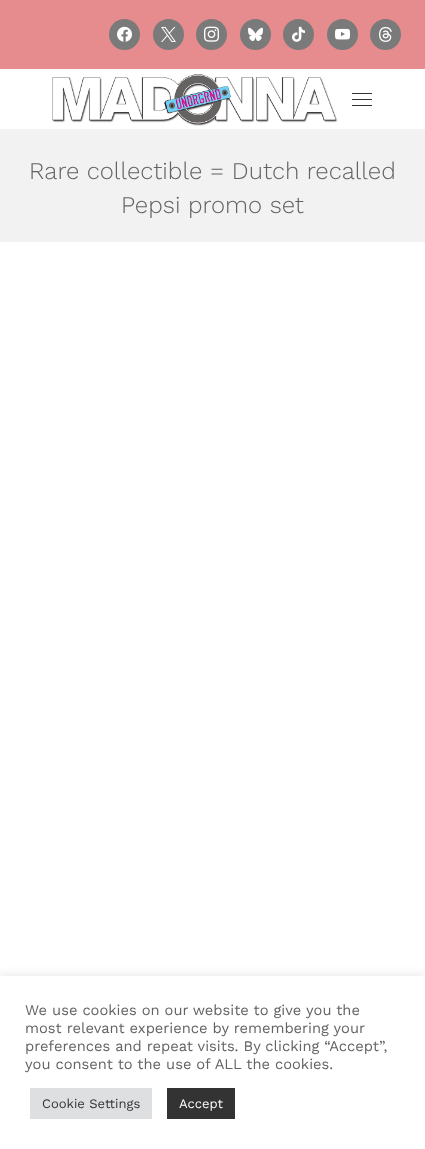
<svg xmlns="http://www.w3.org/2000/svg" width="425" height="1149">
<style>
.a{font:300 24px Work Sans;fill:#646361}
.b{font:14.7px Work Sans;fill:#646361}
.c{font:13px Work Sans;fill:#333}
.d{font:13px Work Sans;fill:#fff}
</style>
<rect width="100%" height="100%" fill="#fff"/>
<path fill="#e68c8f" d="M0 0h425v69H0z"/>
<circle fill="#7a7a7a" cx="124.5" cy="34.5" r="15.5"/>
<image href="1.png" x="117" y="26" width="15" height="16"/>
<circle fill="#7a7a7a" cx="168.5" cy="34.5" r="15.5"/>
<image href="2.png" x="161" y="26" width="15" height="16"/>
<circle fill="#7a7a7a" cx="211.5" cy="34.5" r="15.5"/>
<image href="3.png" x="204" y="26" width="15" height="16"/>
<circle fill="#7a7a7a" cx="255.5" cy="34.5" r="15.5"/>
<image href="4.png" x="248" y="27" width="15" height="15"/>
<circle fill="#7a7a7a" cx="298.5" cy="34.5" r="15.5"/>
<image href="5.png" x="292" y="26" width="14" height="16"/>
<circle fill="#7a7a7a" cx="342.5" cy="34.5" r="15.5"/>
<image href="6.png" x="335" y="28" width="16" height="12"/>
<circle fill="#7a7a7a" cx="385.5" cy="34.5" r="15.5"/>
<image href="7.png" x="379" y="26" width="13" height="16"/>
<image href="8.png" x="52" y="74" width="286" height="52"/>
<path fill="#333" d="M352 93h20v1H352z"/>
<path fill="#333" d="M352 99h20v1H352z"/>
<path fill="#333" d="M352 105h20v1H352z"/>
<path fill="#f2f2f2" d="M0 129h425v113H0z"/>
<path fill="#acabab4d" filter="blur(5px)" d="M0 975h425v173H0z"/>
<path fill="#fff" d="M0 976h425v173H0z"/>
<path fill="#dedfe0" d="M30 1088h122v31H30z"/>
<path fill="#333" d="M167 1088h68v31H167z"/>
<text class="a" x="29" y="179">Rare collectible = Dutch recalled</text>
<text class="a" x="121" y="213">Pepsi promo set</text>
<text class="b" x="25" y="1015">We use cookies on our website to give you the</text>
<text class="b" x="25" y="1033">most relevant experience by remembering your</text>
<text class="b" x="25" y="1051">preferences and repeat visits. By clicking “Accept”,</text>
<text class="b" x="25" y="1069">you consent to the use of ALL the cookies.</text>
<text class="c" x="42" y="1108">Cookie Settings</text>
<text class="d" x="179" y="1108">Accept</text>
</svg>
